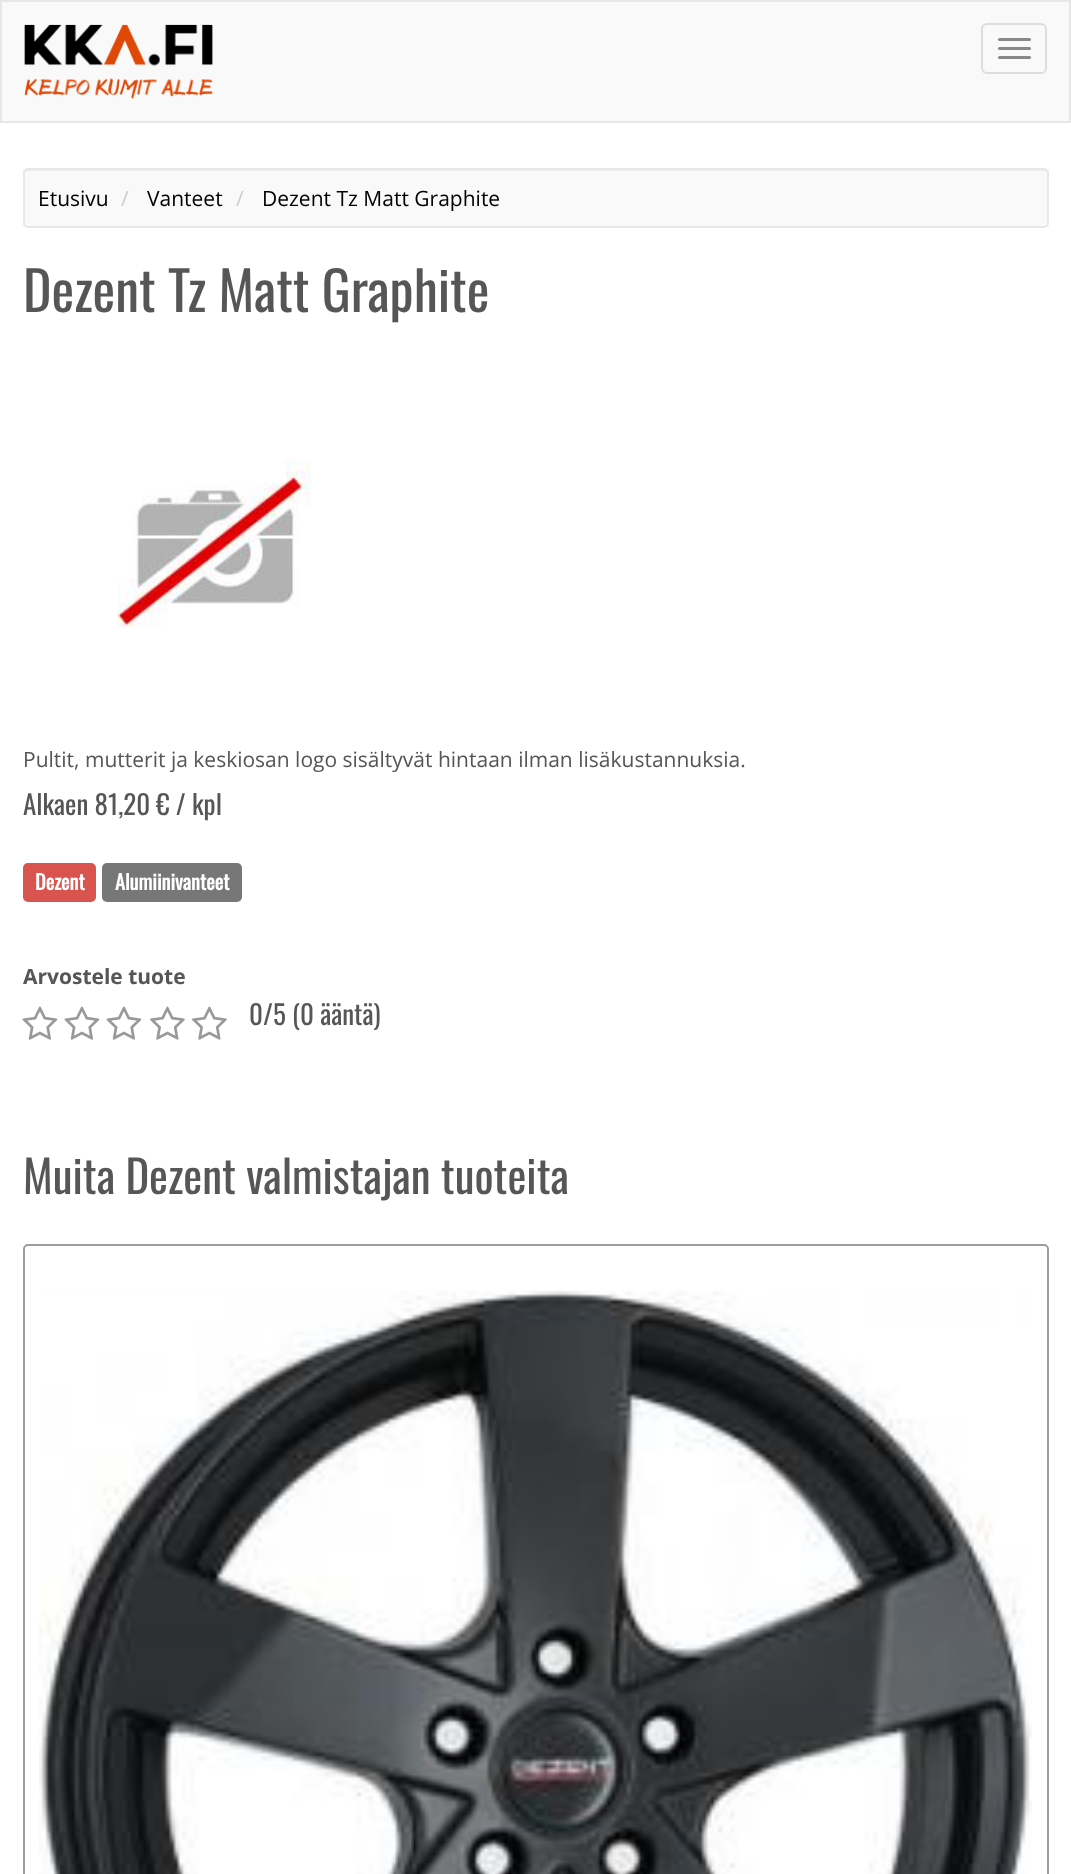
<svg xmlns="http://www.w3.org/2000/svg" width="1071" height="1874">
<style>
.a{font:21px Open Sans;fill:#000}
.b{font:21px Open Sans;fill:#ccc}
.c{font:54px Oswald;fill:#565656}
.d{font:21px Open Sans;fill:#565656}
.e{font:27px Oswald;fill:#565656}
.f{font:bold 20.25px Oswald;fill:#fff}
.g{font:bold 21px Open Sans;fill:#565656}
.h{font:45px Oswald;fill:#565656}
</style>
<rect width="100%" height="100%" fill="#fff"/>
<path fill="#f9f9f9" stroke="#e7e7e7" stroke-width="2" d="M1 1h1069v121H1z"/>
<image href="1.png" x="24" y="24" width="189" height="75"/>
<rect fill="none" stroke="#ddd" stroke-width="2" x="982" y="24" width="64" height="49" rx="5"/>
<rect fill="#888" x="998" y="38" width="33" height="3" rx="1.5"/>
<rect fill="#888" x="998" y="47" width="33" height="3" rx="1.5"/>
<rect fill="#888" x="998" y="56" width="33" height="3" rx="1.5"/>
<rect fill="#f9f9f9" x="23" y="168" width="1026" height="60" rx="5"/>
<path fill="#ededed" d="M27 171h1017c2 0 3 1 3 3c0-2-1-4-3-4h-1017c-2 0-3 2-3 4c0-2 1-3 3-3z"/>
<rect fill="none" stroke="#e7e7e7" stroke-width="2" x="24" y="169" width="1024" height="58" rx="4"/>
<image href="2.png" x="117" y="459" width="195" height="169"/>
<rect fill="#d9534f" x="23" y="863" width="73" height="39" rx="5"/>
<rect fill="#777" x="102" y="863" width="140" height="39" rx="5"/>
<image href="3.png" x="22" y="1006" width="36" height="34"/>
<image href="3.png" x="64" y="1006" width="36" height="34"/>
<image href="3.png" x="106" y="1006" width="36" height="34"/>
<image href="4.png" x="150" y="1006" width="35" height="34"/>
<image href="4.png" x="192" y="1006" width="35" height="34"/>
<rect fill="none" stroke="#9d9d9d" stroke-width="2" x="24" y="1245" width="1024" height="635" rx="4"/>
<image href="5.png" x="39" y="1290" width="993" height="584"/>
<text class="a" x="38" y="206">Etusivu</text>
<text class="b" x="121" y="206">/</text>
<text class="a" x="147" y="206">Vanteet</text>
<text class="b" x="236" y="206">/</text>
<text class="a" x="262" y="206">Dezent Tz Matt Graphite</text>
<text class="c" x="23" y="312">Dezent Tz Matt Graphite</text>
<text class="d" x="23" y="767">Pultit, mutterit ja keskiosan logo sisältyvät hintaan ilman lisäkustannuksia.</text>
<text class="e" x="23" y="815">Alkaen 81,20 € / kpl</text>
<text class="f" x="35" y="890">Dezent</text>
<text class="f" x="115" y="890">Alumiinivanteet</text>
<text class="g" x="23" y="984">Arvostele tuote</text>
<text class="e" x="249" y="1025">0/5 (0 ääntä)</text>
<text class="h" x="23" y="1194">Muita Dezent valmistajan tuoteita</text>
</svg>
